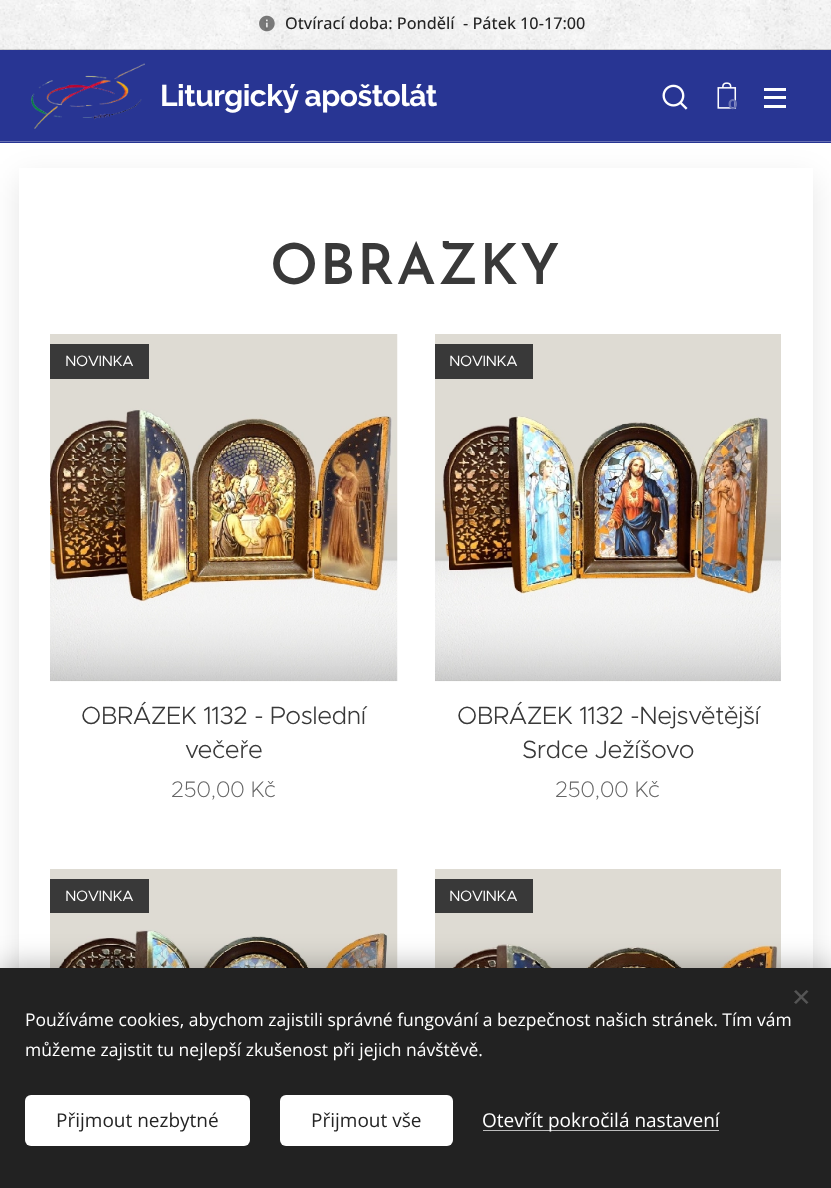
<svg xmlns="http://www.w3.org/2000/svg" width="831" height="1188">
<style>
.a{font:500 16.25px Open Sans;fill:#242424}
.b{font:bold 30px Raleway;letter-spacing:-0.5px;fill:#fff}
.c{font:bold 14px Montserrat;fill:#6c75b5}
.d{font:600 56.25px Josefin Sans;letter-spacing:1.75px;fill:#393939}
.e{font:15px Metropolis;letter-spacing:-0.5px;fill:#fff}
.f{font:300 25px Metropolis;letter-spacing:-0.5px;fill:#393939}
.g{font:200 22.5px Metropolis;letter-spacing:-0.5px;fill:#666}
.h{font:17.5px Open Sans;fill:#fff}
.i{font:19px Open Sans;fill:#242424}
.j{font:19px Open Sans;fill:#fff}
</style>
<rect width="100%" height="100%" fill="#fff"/>
<image href="1.png" x="0" y="0" width="831" height="50"/>
<image href="2.png" x="259" y="15" width="16" height="17"/>
<path fill="#00000026" d="M0 49h831v1H0z"/>
<path fill="#0000001a" filter="blur(15.5px)" d="M19 178h794v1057H19z"/>
<path fill="#283593" d="M0 50h831v93H0z"/>
<image href="3.png" x="31" y="63" width="114" height="66"/>
<image href="4.png" x="662" y="84" width="26" height="26"/>
<image href="5.png" x="717" y="82" width="20" height="27"/>
<path fill="#fff" d="M764 96h22v3H764z"/>
<path fill="#fff" d="M764 88h22v3H764z"/>
<path fill="#fff" d="M764 105h22v3H764z"/>
<path fill="#6972b3" d="M0 141h831v1H0z"/>
<path fill="#fff" d="M19 168h794v800H19z"/>
<image href="6.png" x="50" y="334" width="348" height="348"/>
<path fill="#393939" d="M50 344h99v35H50z"/>
<image href="7.png" x="435" y="334" width="346" height="348"/>
<path fill="#393939" d="M435 344h98v35H435z"/>
<image href="8.png" x="50" y="869" width="348" height="99"/>
<path fill="#393939" d="M50 879h99v34H50z"/>
<image href="9.png" x="435" y="869" width="346" height="99"/>
<path fill="#393939" d="M435 879h98v34H435z"/>
<path fill="#00000054" filter="blur(15.5px)" d="M0 968h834v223H0z"/>
<path fill="#222" d="M0 968h831v220H0z"/>
<path fill="#555" d="M794 1002.5l12.5-12.5l2 1.5l-12.5 12.5z"/>
<path fill="#555" d="M796 990l12.5 12.5l-2 1.5l-12.5-12.5z"/>
<rect fill="#fff" x="25" y="1095" width="225" height="51" rx="6"/>
<rect fill="#fff" x="280" y="1095" width="173" height="51" rx="6"/>
<path fill="#bdbdbd" d="M483 1130h236v1H483z"/>
<text class="a" xml:space="preserve" x="285" y="29">Otvírací doba: Pondělí  - Pátek 10-17:00</text>
<text class="b" x="160" y="106">Liturgický apoštolát</text>
<text class="c" x="728" y="109">0</text>
<text class="d" x="270" y="284">OBRAZKY</text>
<text class="e" x="65" y="366">NOVINKA</text>
<text class="f" x="81" y="724">OBRÁZEK 1132 - Poslední</text>
<text class="f" x="185" y="758">večeře</text>
<text class="g" x="171" y="797">250,00 Kč</text>
<text class="e" x="449" y="366">NOVINKA</text>
<text class="f" x="457" y="724">OBRÁZEK 1132 -Nejsvětější</text>
<text class="f" x="522" y="758">Srdce Ježíšovo</text>
<text class="g" x="555" y="797">250,00 Kč</text>
<text class="e" x="65" y="901">NOVINKA</text>
<text class="e" x="449" y="901">NOVINKA</text>
<text class="h" x="25" y="1026">Používáme cookies, abychom zajistili správné fungování a bezpečnost našich stránek. Tím vám</text>
<text class="h" x="25" y="1056">můžeme zajistit tu nejlepší zkušenost při jejich návštěvě.</text>
<text class="i" x="56" y="1127">Přijmout nezbytné</text>
<text class="i" x="311" y="1127">Přijmout vše</text>
<text class="j" x="482" y="1127">Otevřít pokročilá nastavení</text>
</svg>
